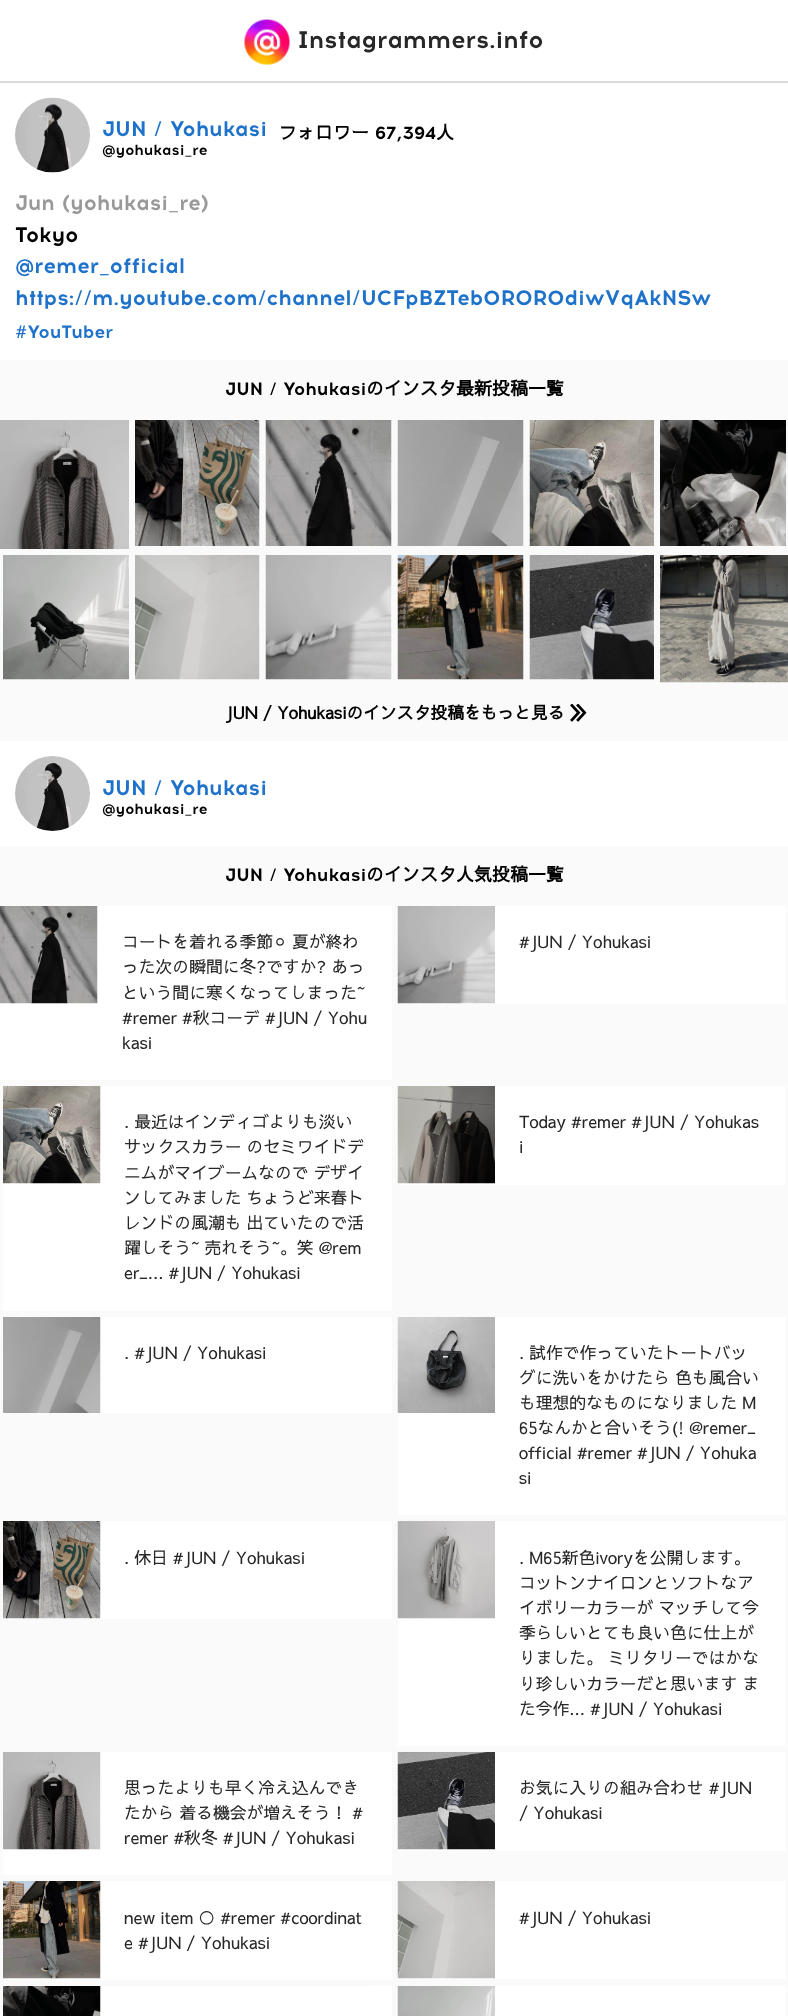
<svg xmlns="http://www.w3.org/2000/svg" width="788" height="2016">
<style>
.a{font:bold 24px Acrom;fill:#272727}
.b{font:bold 21px Acrom;fill:#1f72ca}
.c{font:bold 18px Sawarabi Gothic;fill:#000}
.d{font:bold 18px Acrom;fill:#000}
.e{font:bold 14.75px Acrom;fill:#000}
.f{font:bold 21px Acrom;fill:#999}
.g{font:bold 21px Acrom;fill:#000}
.h{font:bold 18px Acrom;fill:#1f72ca}
.i{font:bold 16.8px Sawarabi Gothic;fill:#000}
.j{font:16.8px Sawarabi Gothic;fill:#272727}
.k{font:16.8px DejaVu Sans;fill:#272727}
</style>
<rect width="100%" height="100%" fill="#fafafa"/>
<path fill="#fff" d="M0 0h788v81H0z"/>
<path fill="#dbdbdb" d="M0 81h788v2H0z"/>
<image href="1.png" x="244" y="19" width="46" height="46"/>
<path fill="#fff" d="M0 83h788v277H0z"/>
<image href="2.png" x="15" y="97" width="75" height="76"/>
<image href="3.png" x="0" y="420" width="129" height="129"/>
<path fill="#fff" d="M259 462h1v33H259z"/>
<image href="4.png" x="135" y="420" width="125" height="126"/>
<path fill="#fafafa" filter="blur(7.5px)" d="M266 462h126v33H266z"/>
<path fill="#fff" d="M391 462h1v33H391z"/>
<image href="5.png" x="265" y="420" width="127" height="126"/>
<path fill="#fafafa" filter="blur(7.5px)" d="M398 462h126v33H398z"/>
<path fill="#fff" d="M523 462h1v33H523z"/>
<image href="6.png" x="397" y="420" width="127" height="126"/>
<path fill="#fafafa" filter="blur(7.5px)" d="M530 462h124v33H530z"/>
<image href="7.png" x="529" y="420" width="125" height="126"/>
<path fill="#fafafa" filter="blur(7.5px)" d="M660 462h126v33H660z"/>
<image href="8.png" x="660" y="420" width="126" height="126"/>
<image href="9.png" x="3" y="555" width="126" height="125"/>
<path fill="#fff" d="M259 597h1v33H259z"/>
<image href="10.png" x="135" y="555" width="125" height="125"/>
<path fill="#fff" d="M391 597h1v33H391z"/>
<image href="11.png" x="265" y="555" width="127" height="125"/>
<path fill="#fff" d="M523 597h1v33H523z"/>
<image href="12.png" x="397" y="555" width="127" height="125"/>
<path fill="#fafafa" filter="blur(7.5px)" d="M530 597h124v33H530z"/>
<image href="13.png" x="529" y="555" width="125" height="125"/>
<path fill="#fafafa" filter="blur(7.5px)" d="M660 599h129v33H660z"/>
<image href="14.png" x="660" y="555" width="128" height="128"/>
<image href="15.png" x="570" y="704" width="17" height="18"/>
<path fill="#fff" d="M0 741h788v105H0z"/>
<image href="16.png" x="15" y="756" width="75" height="75"/>
<path fill="#fff" d="M0 906h392v174H0z"/>
<image href="17.png" x="0" y="906" width="98" height="98"/>
<path fill="#fff" d="M398 906h388v98H398z"/>
<image href="18.png" x="397" y="906" width="98" height="98"/>
<path fill="#fff" d="M3 1086h389v225H3z"/>
<image href="19.png" x="3" y="1086" width="98" height="98"/>
<path fill="#fff" d="M398 1086h388v99H398z"/>
<image href="20.png" x="397" y="1086" width="98" height="98"/>
<path fill="#fff" d="M100 1317h292v96H100z"/>
<image href="21.png" x="3" y="1317" width="98" height="96"/>
<path fill="#fff" d="M398 1317h388v198H398z"/>
<image href="22.png" x="397" y="1317" width="98" height="96"/>
<path fill="#fff" d="M3 1521h389v98H3z"/>
<image href="23.png" x="3" y="1521" width="98" height="98"/>
<path fill="#fff" d="M398 1521h388v225H398z"/>
<image href="24.png" x="397" y="1521" width="98" height="98"/>
<path fill="#fff" d="M3 1752h389v123H3z"/>
<image href="25.png" x="3" y="1752" width="98" height="98"/>
<path fill="#fff" d="M398 1752h388v99H398z"/>
<image href="26.png" x="397" y="1752" width="98" height="98"/>
<path fill="#fff" d="M3 1881h389v99H3z"/>
<image href="27.png" x="3" y="1881" width="98" height="98"/>
<path fill="#fff" d="M398 1881h388v98H398z"/>
<image href="28.png" x="397" y="1881" width="98" height="98"/>
<path fill="#fafafa" filter="blur(7.5px)" d="M3 1986h389v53H3z"/>
<path fill="#fff" d="M100 1986h292v30H100z"/>
<image href="29.png" x="3" y="1986" width="98" height="30"/>
<path fill="#fff" d="M495 1986h291v30H495z"/>
<image href="30.png" x="397" y="1986" width="98" height="30"/>
<text class="a" x="297" y="48">Instagrammers.info</text>
<text class="b" x="102" y="136">JUN / Yohukasi</text>
<text class="c" x="279" y="139">フォロワー</text>
<text class="d" x="375" y="139">67,394</text>
<text class="c" x="436" y="139">人</text>
<text class="e" x="102" y="155">@yohukasi_re</text>
<text class="f" x="15" y="210">Jun (yohukasi_re)</text>
<text class="g" x="15" y="242">Tokyo</text>
<text class="b" x="15" y="273">@remer_official</text>
<text class="b" x="15" y="305">https://m.youtube.com/channel/UCFpBZTeb0ROR0diwVqAkNSw</text>
<text class="h" x="15" y="338">#YouTuber</text>
<text class="d" x="225" y="395">JUN / Yohukasi</text>
<text class="c" x="366" y="395">のインスタ最新投稿一覧</text>
<text class="i" x="225" y="719">JUN / Yohukasiのインスタ投稿をもっと見る</text>
<text class="b" x="102" y="795">JUN / Yohukasi</text>
<text class="e" x="102" y="814">@yohukasi_re</text>
<text class="d" x="225" y="881">JUN / Yohukasi</text>
<text class="c" x="366" y="881">のインスタ人気投稿一覧</text>
<text class="j" x="122" y="948">コートを着れる季節</text>
<text class="k" x="273" y="948">⚪︎</text>
<text class="j" x="292" y="948">夏が終わ</text>
<text class="j" x="122" y="973">った次の瞬間に冬?ですか? あっ</text>
<text class="j" x="122" y="999">という間に寒くなってしまった~</text>
<text class="j" x="122" y="1024">#remer #秋コーデ #JUN / Yohu</text>
<text class="j" x="122" y="1049">kasi</text>
<text class="j" x="519" y="948">#JUN / Yohukasi</text>
<text class="j" x="124" y="1128">. 最近はインディゴよりも淡い</text>
<text class="j" x="124" y="1153">サックスカラー のセミワイドデ</text>
<text class="j" x="124" y="1179">ニムがマイブームなので デザイ</text>
<text class="j" x="124" y="1204">ンしてみました ちょうど来春ト</text>
<text class="j" x="124" y="1229">レンドの風潮も 出ていたので活</text>
<text class="j" x="124" y="1254">躍しそう~ 売れそう~。笑 @rem</text>
<text class="j" x="124" y="1279">er_... #JUN / Yohukasi</text>
<text class="j" x="519" y="1128">Today #remer #JUN / Yohukas</text>
<text class="j" x="519" y="1153">i</text>
<text class="j" x="124" y="1359">. #JUN / Yohukasi</text>
<text class="j" x="519" y="1359">. 試作で作っていたトートバッ</text>
<text class="j" x="519" y="1384">グに洗いをかけたら 色も風合い</text>
<text class="j" x="519" y="1409">も理想的なものになりました M</text>
<text class="j" x="519" y="1434">65なんかと合いそう(! @remer_</text>
<text class="j" x="519" y="1459">official #remer #JUN / Yohuka</text>
<text class="j" x="519" y="1484">si</text>
<text class="j" x="124" y="1564">. 休日 #JUN / Yohukasi</text>
<text class="j" x="519" y="1564">. M65新色ivoryを公開します。</text>
<text class="j" x="519" y="1589">コットンナイロンとソフトなア</text>
<text class="j" x="519" y="1614">イボリーカラーが マッチして今</text>
<text class="j" x="519" y="1639">季らしいとても良い色に仕上が</text>
<text class="j" x="519" y="1664">りました。 ミリタリーではかな</text>
<text class="j" x="519" y="1690">り珍しいカラーだと思います ま</text>
<text class="j" x="519" y="1715">た今作... #JUN / Yohukasi</text>
<text class="j" x="124" y="1794">思ったよりも早く冷え込んでき</text>
<text class="j" x="124" y="1819">たから 着る機会が増えそう！ #</text>
<text class="j" x="124" y="1844">remer #秋冬 #JUN / Yohukasi</text>
<text class="j" x="519" y="1794">お気に入りの組み合わせ #JUN</text>
<text class="j" x="519" y="1819">/ Yohukasi</text>
<text class="j" x="124" y="1924">new item ○ #remer #coordinat</text>
<text class="j" x="124" y="1949">e #JUN / Yohukasi</text>
<text class="j" x="519" y="1924">#JUN / Yohukasi</text>
</svg>
